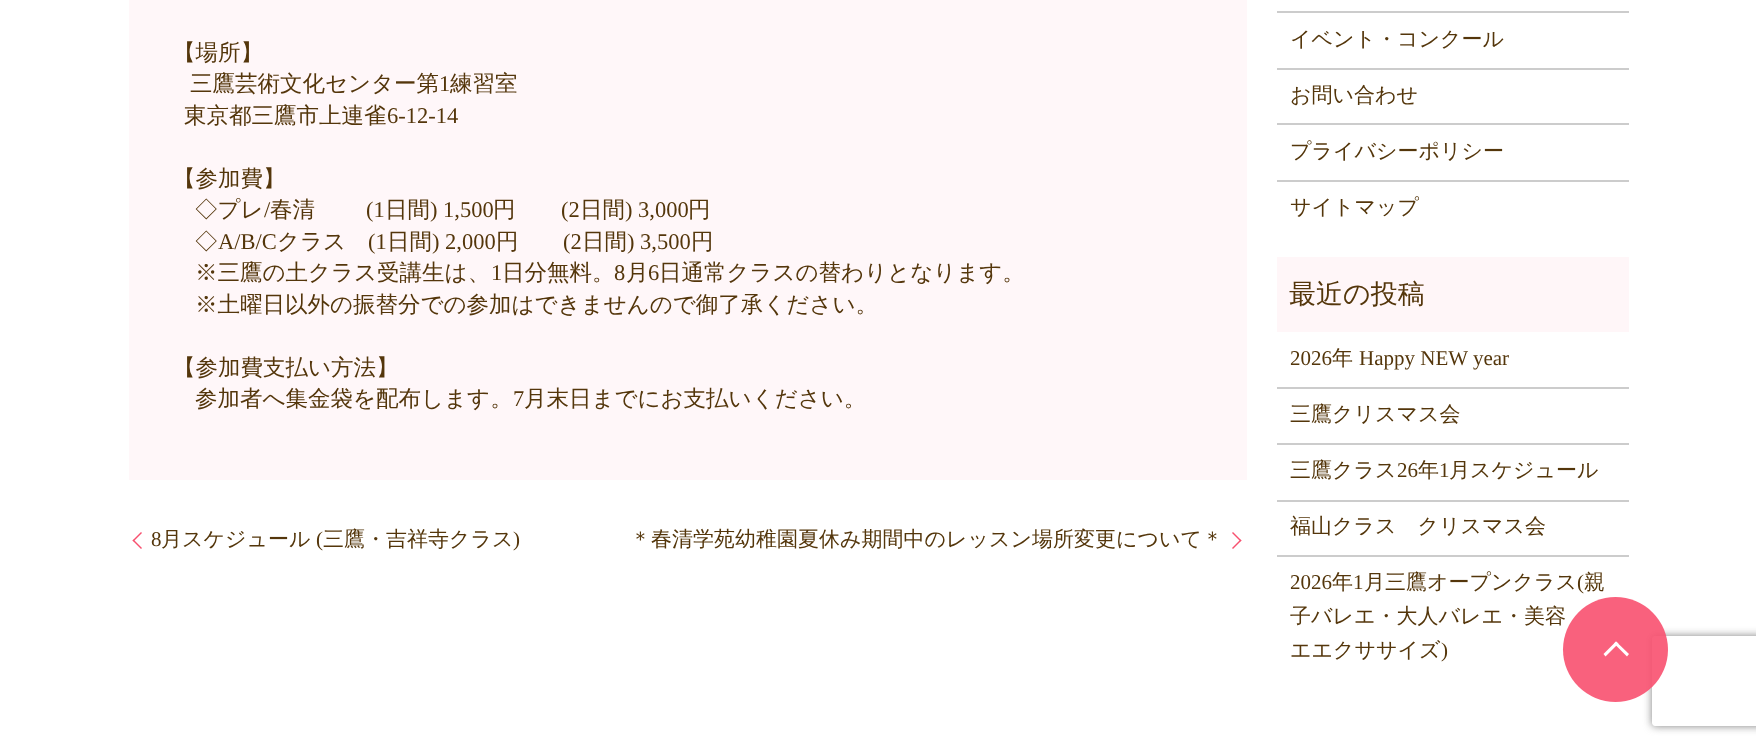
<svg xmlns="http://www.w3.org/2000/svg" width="1756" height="746">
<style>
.a{font:500 22.5px WenQuanYi Zen Hei;fill:#54360b}
.b{font:22.5px Liberation Serif;fill:#54360b}
.c{font:21px Liberation Serif;fill:#54360b}
.d{font:500 21px WenQuanYi Zen Hei;fill:#54360b}
.e{font:500 27px WenQuanYi Zen Hei;fill:#54360b}
</style>
<defs>
<clipPath id="clip1"><path d="M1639 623h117v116h-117zm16 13h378c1.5 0 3 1.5 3 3v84c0 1.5-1.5 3-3 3h-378c-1.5 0-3-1.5-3-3v-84c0-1.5 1.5-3 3-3z" clip-rule="evenodd"/></clipPath>
</defs>
<rect width="100%" height="100%" fill="#fff"/>
<path fill="#fff7f9" d="M129 0h1118v480H129z"/>
<path fill="#f8506f" d="M132.5 540.5l8.5-8.5l1 1l-8.5 8.5z"/>
<path fill="#f8506f" d="M141 549l-8.5-8.5l1-1l8.5 8.5z"/>
<path fill="#f8506f" d="M1233 532l8.5 8.5l-1 1l-8.5-8.5z"/>
<path fill="#f8506f" d="M1241.5 540.5l-8.5 8.5l-1-1l8.5-8.5z"/>
<path fill="#ccc" d="M1277 11h352v2H1277z"/>
<path fill="#ccc" d="M1277 68h352v2H1277z"/>
<path fill="#ccc" d="M1277 123h352v2H1277z"/>
<path fill="#ccc" d="M1277 180h352v2H1277z"/>
<path fill="#fff6f8" d="M1277 257h352v75H1277z"/>
<path fill="#ccc" d="M1277 387h352v2H1277z"/>
<path fill="#ccc" d="M1277 443h352v2H1277z"/>
<path fill="#ccc" d="M1277 500h352v2H1277z"/>
<path fill="#ccc" d="M1277 555h352v2H1277z"/>
<g clip-path="url(#clip1)">
<rect fill="#808080" filter="blur(4px)" x="1652" y="636" width="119" height="90" rx="3"/>
</g>
<text class="a" x="173" y="60">【場所】</text>
<text class="a" x="190" y="91">三鷹芸術文化センター第</text>
<text class="b" x="439" y="91">1</text>
<text class="a" x="450" y="91">練習室</text>
<text class="a" x="184" y="123">東京都三鷹市上連雀</text>
<text class="b" x="387" y="123">6-12-14</text>
<text class="a" x="173" y="186">【参加費】</text>
<text class="a" x="195" y="217">◇プレ</text>
<text class="b" x="264" y="217">/</text>
<text class="a" x="270" y="217">春清</text>
<text class="b" x="366" y="217">(1</text>
<text class="a" x="385" y="217">日間</text>
<text class="b" x="430" y="217">) 1,500</text>
<text class="a" x="493" y="217">円</text>
<text class="b" x="561" y="217">(2</text>
<text class="a" x="580" y="217">日間</text>
<text class="b" x="625" y="217">) 3,000</text>
<text class="a" x="688" y="217">円</text>
<text class="a" x="195" y="249">◇</text>
<text class="b" x="218" y="249">A/B/C</text>
<text class="a" x="277" y="249">クラス</text>
<text class="b" x="368" y="249">(1</text>
<text class="a" x="387" y="249">日間</text>
<text class="b" x="432" y="249">) 2,000</text>
<text class="a" x="496" y="249">円</text>
<text class="b" x="563" y="249">(2</text>
<text class="a" x="582" y="249">日間</text>
<text class="b" x="627" y="249">) 3,500</text>
<text class="a" x="691" y="249">円</text>
<text class="a" x="195" y="280">※三鷹の土クラス受講生は、</text>
<text class="b" x="491" y="280">1</text>
<text class="a" x="502" y="280">日分無料。</text>
<text class="b" x="614" y="280">8</text>
<text class="a" x="626" y="280">月</text>
<text class="b" x="648" y="280">6</text>
<text class="a" x="659" y="280">日通常クラスの替わりとなります。</text>
<text class="a" x="195" y="312">※土曜日以外の振替分での参加はできませんので御了承ください。</text>
<text class="a" x="173" y="375">【参加費支払い方法】</text>
<text class="a" x="195" y="406">参加者へ集金袋を配布します。</text>
<text class="b" x="513" y="406">7</text>
<text class="a" x="524" y="406">月末日までにお支払いください。</text>
<text class="c" x="151" y="546">8</text>
<text class="d" x="161" y="546">月スケジュール</text>
<text class="c" x="316" y="546">(</text>
<text class="d" x="323" y="546">三鷹・吉祥寺クラス</text>
<text class="c" x="513" y="546">)</text>
<text class="d" x="630" y="546">＊春清学苑幼稚園夏休み期間中のレッスン場所変更について＊</text>
<text class="d" x="1290" y="46">イベント・コンクール</text>
<text class="d" x="1290" y="102">お問い合わせ</text>
<text class="d" x="1290" y="158">プライバシーポリシー</text>
<text class="d" x="1290" y="214">サイトマップ</text>
<text class="e" x="1289" y="303">最近の投稿</text>
<text class="c" x="1290" y="365">2026</text>
<text class="d" x="1332" y="365">年</text>
<text class="c" x="1359" y="365">Happy NEW year</text>
<text class="d" x="1290" y="421">三鷹クリスマス会</text>
<text class="d" x="1290" y="477">三鷹クラス</text>
<text class="c" x="1397" y="477">26</text>
<text class="d" x="1418" y="477">年</text>
<text class="c" x="1439" y="477">1</text>
<text class="d" x="1449" y="477">月スケジュール</text>
<text class="d" x="1290" y="533">福山クラス　クリスマス会</text>
<text class="c" x="1290" y="589">2026</text>
<text class="d" x="1332" y="589">年</text>
<text class="c" x="1353" y="589">1</text>
<text class="d" x="1364" y="589">月三鷹オープンクラス</text>
<text class="c" x="1577" y="589">(</text>
<text class="d" x="1584" y="589">親</text>
<text class="d" x="1290" y="623">子バレエ・大人バレエ・美容</text>
<text class="d" x="1290" y="657">エエクササイズ</text>
<text class="c" x="1441" y="657">)</text>
<circle fill="#f8506fe6" cx="1615.5" cy="649.5" r="52.5"/>
<path fill="#fff" d="M1616 641.5l13 12.5l-2 2.5l-13-13z"/>
<path fill="#fff" d="M1616 641.5l2.5 2l-13 13l-2-2.5z"/>
</svg>
